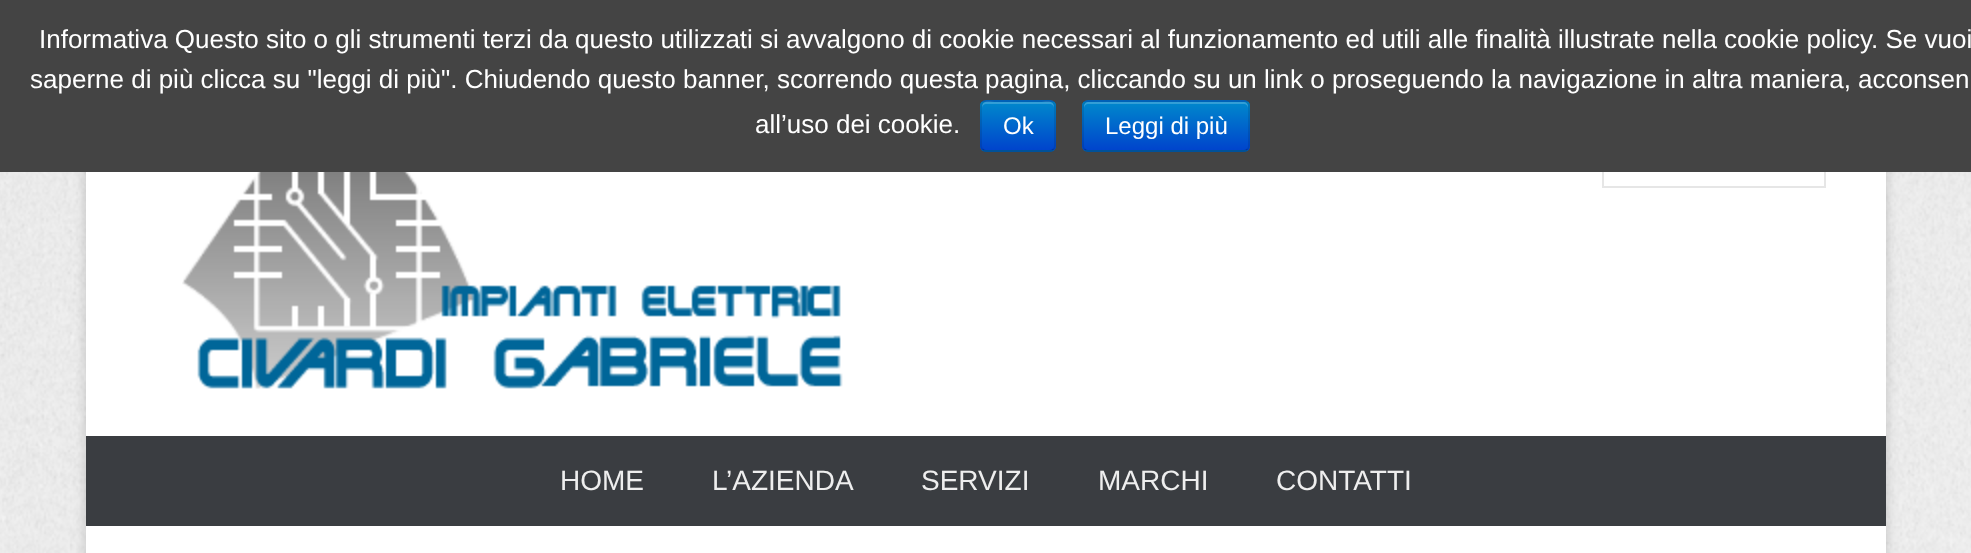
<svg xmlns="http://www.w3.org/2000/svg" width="1971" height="553">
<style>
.a{font:26px Liberation Sans;fill:#fff}
.b{font:24px Liberation Sans;fill:#fff}
.c{font:28px Liberation Sans;fill:#eee}
</style>
<defs>
<clipPath id="clip1"><rect x="980" y="100" width="76" height="52" rx="6"/></clipPath>
<linearGradient id="g1" gradientUnits="userSpaceOnUse" x1="1018" y1="102" x2="1018" y2="150"><stop offset="0" stop-color="#08c"/><stop offset="1" stop-color="#04c"/></linearGradient>
<clipPath id="clip2"><rect x="1082" y="100" width="168" height="52" rx="6"/></clipPath>
<linearGradient id="g2" gradientUnits="userSpaceOnUse" x1="1166" y1="102" x2="1166" y2="150"><stop offset="0" stop-color="#08c"/><stop offset="1" stop-color="#04c"/></linearGradient>
</defs>
<rect width="100%" height="100%" fill="#fff"/>
<image href="1.png" x="0" y="172" width="1971" height="381"/>
<path fill="#6464644d" filter="blur(6px)" d="M86 44h1800v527H86z"/>
<path fill="#fff" d="M86 172h1800v381H86z"/>
<path fill="none" stroke="#e6e6e6" stroke-width="2" d="M1603 121h222v66H1603z"/>
<path fill="#444" d="M0 0h1971v172H0z"/>
<rect fill="#006dcc" x="980" y="100" width="76" height="52" rx="6"/>
<g clip-path="url(#clip1)">
<path fill="url(#g1)" d="M980 102h76v48H980z"/>
</g>
<path fill="#ffffff33" d="M986 104h64c2 0 4 2 4 4c0-9-7-6-15-6h-42c-8 0-15-3-15 6c0-2 2-4 4-4z"/>
<path fill="none" stroke="#00000040" stroke-width="2" d="M1053.5 149.5c-1 1-2 1.5-3.5 1.5h-64c-1.5 0-2.5-.5-3.5-1.5"/>
<path fill="none" stroke="#0000001a" stroke-width="2" d="M982.5 149.5c-1-1-1.5-2-1.5-3.5v-40c0-1.5 .5-2.5 1.5-3.5c1-1 2-1.5 3.5-1.5h64c1.5 0 2.5 .5 3.5 1.5c1 1 1.5 2 1.5 3.5v40c0 1.5-.5 2.5-1.5 3.5"/>
<rect fill="#006dcc" x="1082" y="100" width="168" height="52" rx="6"/>
<g clip-path="url(#clip2)">
<path fill="url(#g2)" d="M1082 102h168v48H1082z"/>
</g>
<path fill="#ffffff33" d="M1088 104h156c2 0 4 2 4 4v-2c0-2-2-4-4-4h-156c-2 0-4 2-4 4v2c0-2 2-4 4-4z"/>
<path fill="none" stroke="#00000040" stroke-width="2" d="M1247.5 149.5c-1 1-2 1.5-3.5 1.5h-156c-1.5 0-2.5-.5-3.5-1.5"/>
<path fill="none" stroke="#0000001a" stroke-width="2" d="M1084.5 149.5c-1-1-1.5-2-1.5-3.5v-40c0-1.5 .5-2.5 1.5-3.5c1-1 2-1.5 3.5-1.5h156c1.5 0 2.5 .5 3.5 1.5c1 1 1.5 2 1.5 3.5v40c0 1.5-.5 2.5-1.5 3.5"/>
<image href="2.png" x="182" y="172" width="661" height="217"/>
<path fill="#3a3d41" d="M86 436h1800v90H86z"/>
<text class="a" x="39" y="48">Informativa Questo sito o gli strumenti terzi da questo utilizzati si avvalgono di cookie necessari al funzionamento ed utili alle finalità illustrate nella cookie policy. Se vuoi</text>
<text class="a" x="30" y="88">saperne di più clicca su "leggi di più". Chiudendo questo banner, scorrendo questa pagina, cliccando su un link o proseguendo la navigazione in altra maniera, acconsen</text>
<text class="a" x="755" y="133">all’uso dei cookie.</text>
<text class="b" x="1003" y="134">Ok</text>
<text class="b" x="1105" y="134">Leggi di più</text>
<text class="c" x="560" y="490">HOME</text>
<text class="c" x="712" y="490">L’AZIENDA</text>
<text class="c" x="921" y="490">SERVIZI</text>
<text class="c" x="1098" y="490">MARCHI</text>
<text class="c" x="1276" y="490">CONTATTI</text>
</svg>
